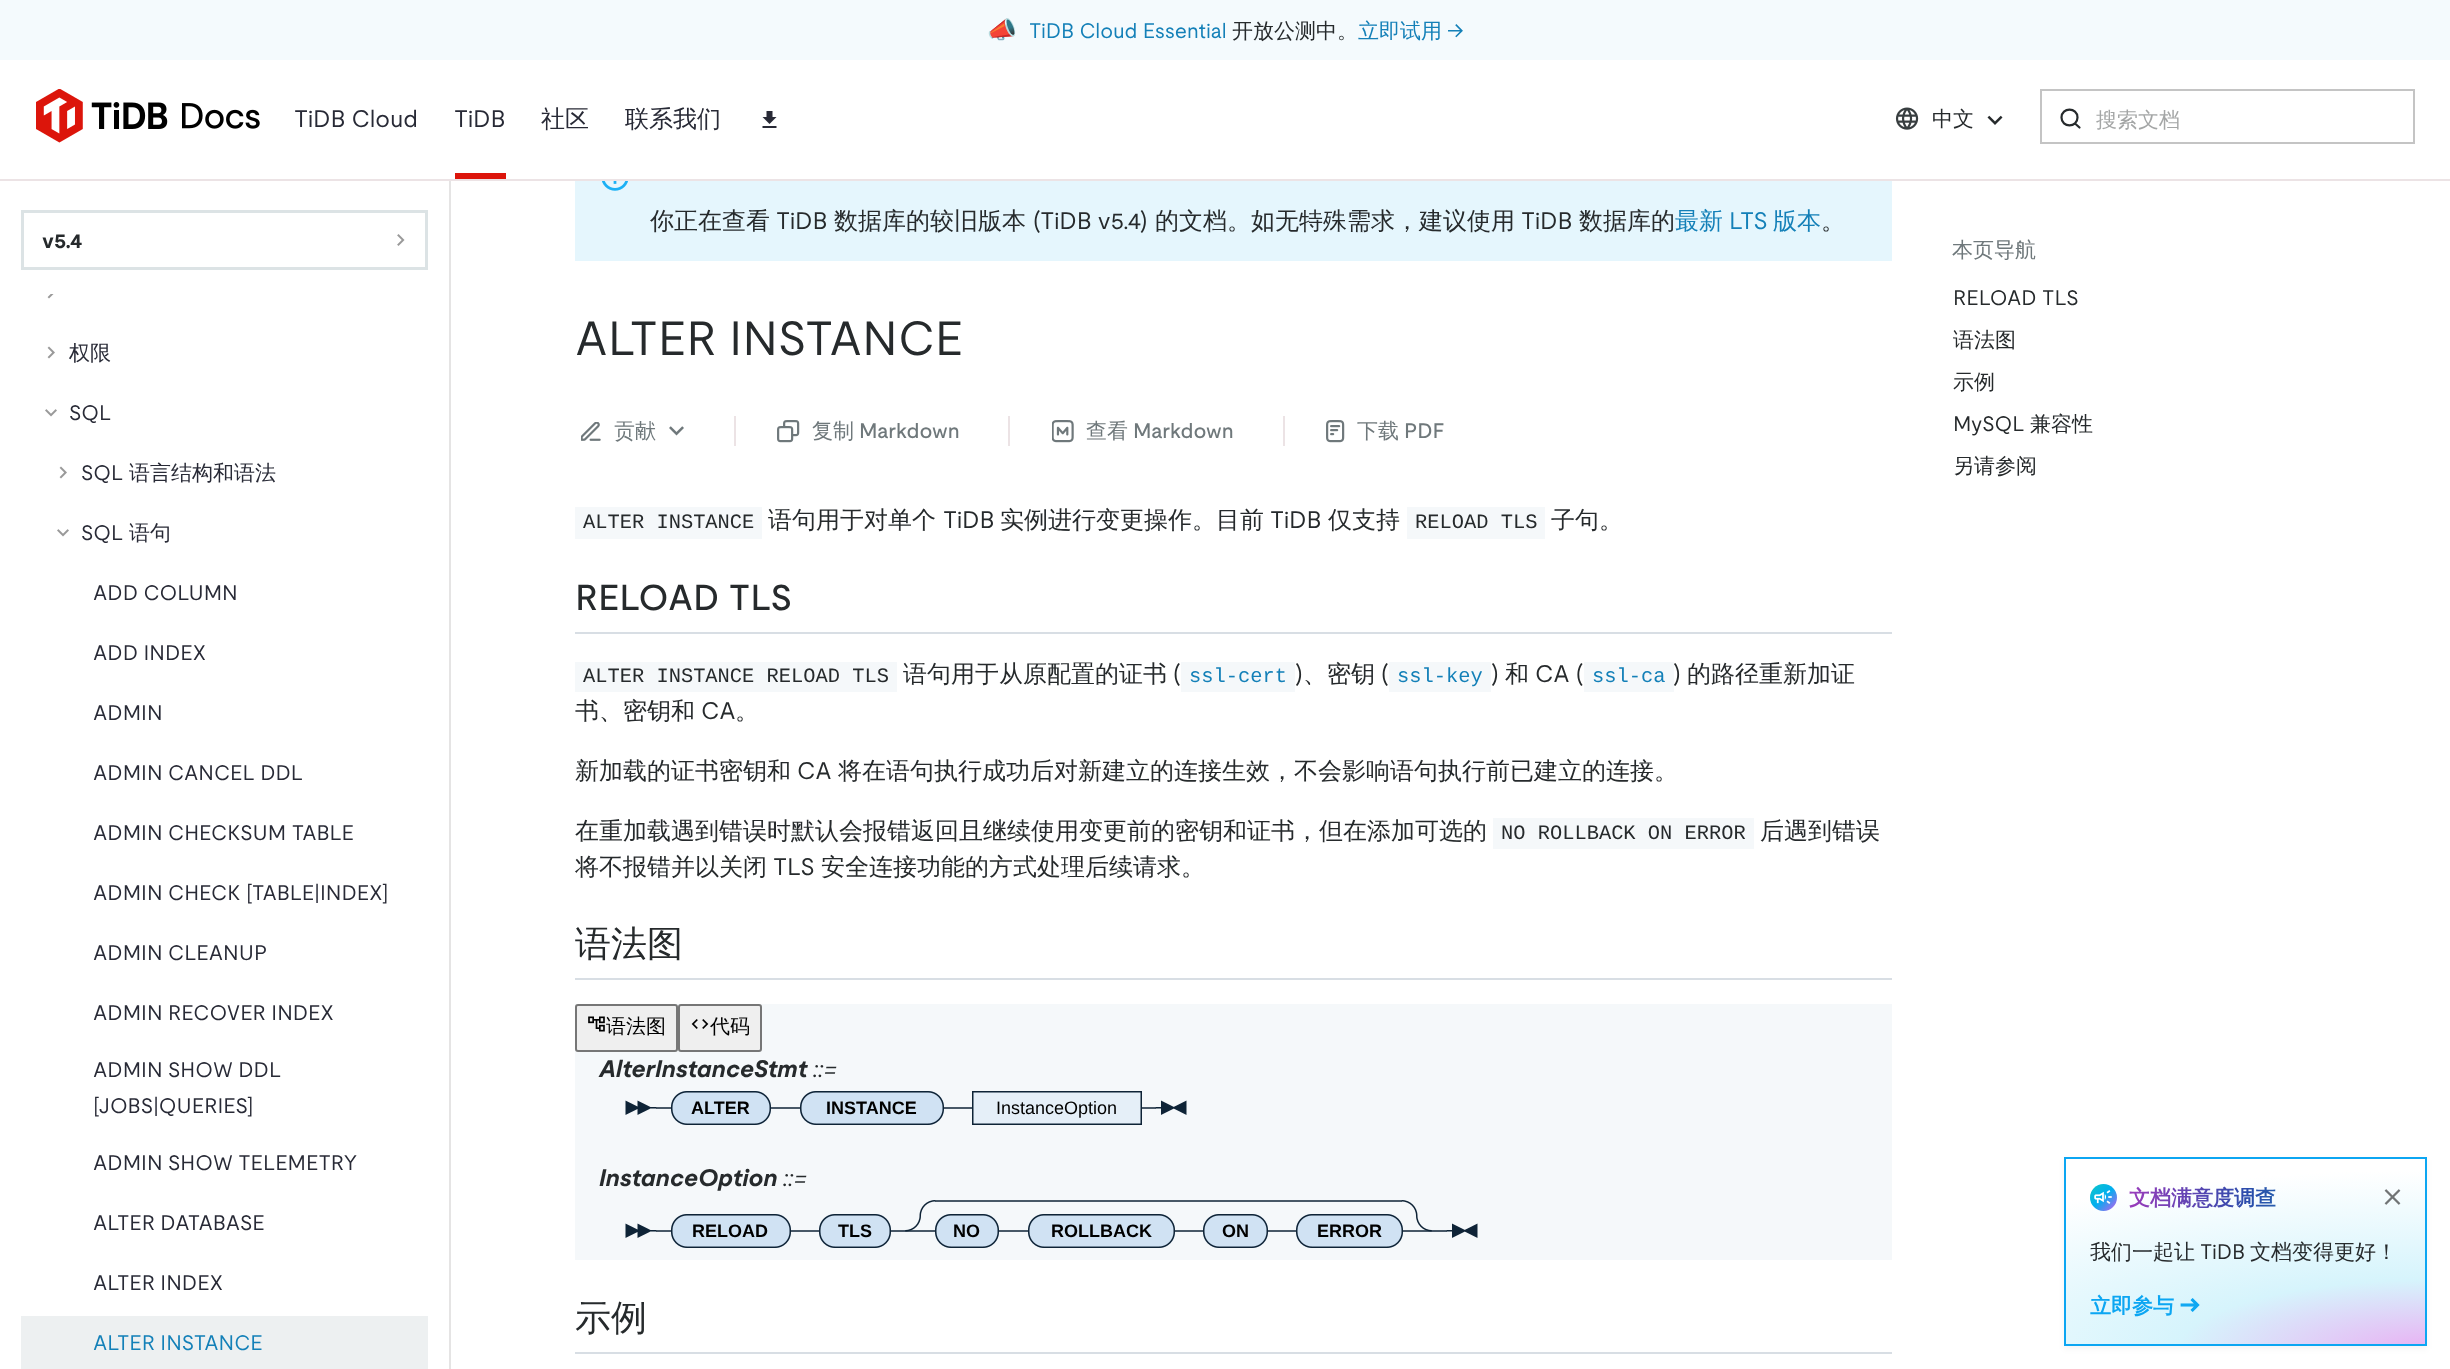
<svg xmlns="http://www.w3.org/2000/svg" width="2450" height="1369">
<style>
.a{font:24px Noto Color Emoji;fill:#262a2c}
.b{font:21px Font;fill:#1480b8}
.c{font:500 21px WenQuanYi Zen Hei;fill:#262a2c}
.d{font:500 21px WenQuanYi Zen Hei;fill:#1480b8}
.e{font:24px Font;fill:#282a36}
.f{font:500 24px WenQuanYi Zen Hei;fill:#282a36}
.g{font:500 21px WenQuanYi Zen Hei;fill:#a4a6a6}
.h{font:bold 21px Font;fill:#262a2c}
.i{font:500 21px WenQuanYi Zen Hei;fill:#282a36}
.j{font:21px Font;fill:#282a36}
.k{font:500 24px WenQuanYi Zen Hei;fill:#262a2c}
.l{font:24px Font;fill:#262a2c}
.m{font:500 24px WenQuanYi Zen Hei;fill:#1480b8}
.n{font:24px Font;fill:#1480b8}
.o{font:48px Font;fill:#262a2c}
.p{font:500 21px WenQuanYi Zen Hei;fill:#6f787b}
.q{font:500 21px Font;fill:#6f787b}
.r{font:20.4px Liberation Mono;fill:#262a2c}
.s{font:500 36px Font;fill:#262a2c}
.t{font:20.4px Liberation Mono;fill:#1480b8}
.u{font:500 36px WenQuanYi Zen Hei;fill:#262a2c}
.v{font:500 20px WenQuanYi Zen Hei;fill:#000}
.w{font:italic bold 24px Font;fill:#262a2c}
.x{font:italic 24px Font;fill:#262a2c}
.y{font:bold 18px Liberation Sans;fill:#000}
.z{font:18px Liberation Sans;fill:#000}
.a1{font:21px Font;fill:#262a2c}
.b1{font:bold 21px WenQuanYi Zen Hei;fill:url(#g1)}
.c1{font:bold 21px WenQuanYi Zen Hei;fill:#0ca6f2}
</style>
<defs>
<linearGradient id="g1" gradientUnits="userSpaceOnUse" x1="2129" y1="1197" x2="2372" y2="1197"><stop offset="0" stop-color="#9a3cbb"/><stop offset="0.5" stop-color="#284dab"/><stop offset="1" stop-color="#2d9bb7"/></linearGradient>
<radialGradient id="g2" gradientUnits="userSpaceOnUse" cx="0" cy="0" r="1" gradientTransform="matrix(652 0 0 180 2432 1350)"><stop offset="0" stop-color="#e9b0f3"/><stop offset="0.39" stop-color="#d6f4fc"/><stop offset="1" stop-color="#fff"/></radialGradient>
<linearGradient id="g3" gradientUnits="userSpaceOnUse" x1="2090" y1="1184" x2="2117" y2="1211"><stop offset="0" stop-color="#0fc7c7"/><stop offset="0.5" stop-color="#00aeef"/><stop offset="1" stop-color="#ca5af0"/></linearGradient>
</defs>
<rect width="100%" height="100%" fill="#fff"/>
<path fill="#f4fafd" d="M0 0h2450v60H0z"/>
<path fill="#ece3e5" d="M0 179h2450v2H0z"/>
<image href="1.png" x="36" y="89" width="224" height="54"/>
<path fill="#dc150b" d="M455 173h51v6H455z"/>
<image href="2.png" x="762" y="111" width="15" height="17"/>
<image href="3.png" x="1895" y="107" width="24" height="23"/>
<image href="4.png" x="1987" y="115" width="16" height="10"/>
<path fill="none" stroke="#262a2c" stroke-width="2.2" stroke-linecap="round" stroke-linejoin="round" d="M2079.5 127.5l-4.5-4m2.5-6c0 10.5-16 10.5-16 0c0-10.5 16-10.5 16 0z"/>
<path fill="none" stroke="#c4c4c4" stroke-width="2" d="M2041 90h373v53H2041z"/>
<path fill="#e5e4e4" d="M449 181h2v1188H449z"/>
<path fill="none" stroke="#dce3e5" stroke-width="3" d="M22.5 211.5h404v57H22.5z"/>
<image href="5.png" x="397" y="234" width="8" height="12"/>
<image href="6.png" x="47" y="294" width="7" height="5"/>
<image href="7.png" x="47" y="346" width="8" height="13"/>
<image href="8.png" x="45" y="409" width="12" height="8"/>
<image href="7.png" x="59" y="466" width="8" height="13"/>
<image href="8.png" x="57" y="529" width="12" height="8"/>
<path fill="#edf0f1" d="M21 1316h407v53H21z"/>
<path fill="#e5f6fd" d="M575 181h1317v80H575z"/>
<image href="9.png" x="602" y="181" width="26" height="10"/>
<image href="10.png" x="581" y="422" width="20" height="19"/>
<image href="11.png" x="669" y="426" width="15" height="10"/>
<path fill="#ece3e5" d="M734 416h2v30H734z"/>
<image href="12.png" x="777" y="420" width="23" height="23"/>
<path fill="#ece3e5" d="M1008 416h2v30H1008z"/>
<image href="13.png" x="1052" y="420" width="22" height="23"/>
<path fill="#ece3e5" d="M1283 416h2v30H1283z"/>
<image href="14.png" x="1326" y="420" width="19" height="23"/>
<path fill="#f5f8fa" d="M575 507h187v32H575z"/>
<path fill="#f5f8fa" d="M1407 507h138v32H1407z"/>
<path fill="#d8dee4" d="M575 632h1317v2H575z"/>
<path fill="#f5f8fa" d="M575 662h322v30H575z"/>
<path fill="#f5f8fa" d="M1181 662h114v30H1181z"/>
<path fill="#f5f8fa" d="M1389 662h102v30H1389z"/>
<path fill="#f5f8fa" d="M1584 662h90v30H1584z"/>
<path fill="#f5f8fa" d="M1493 818h261v31H1493z"/>
<path fill="#d8dee4" d="M575 978h1317v2H575z"/>
<path fill="#f5f8fa" d="M575 1004h1317v256H575z"/>
<rect fill="#efefef" stroke="#767676" stroke-width="2" x="576" y="1005" width="101" height="46" rx="2"/>
<image href="15.png" x="588" y="1016" width="17" height="16"/>
<rect fill="#efefef" stroke="#767676" stroke-width="2" x="679" y="1005" width="82" height="46" rx="2"/>
<image href="16.png" x="691" y="1019" width="18" height="10"/>
<image href="17.png" x="625" y="1091" width="562" height="34"/>
<image href="18.png" x="625" y="1200" width="853" height="48"/>
<path fill="#d8dee4" d="M575 1352h1317v2H575z"/>
<path fill="#0000000a" filter="blur(3px)" d="M2064 1160h363v189H2064z"/>
<path fill="url(#g2)" d="M2066 1159h359v185H2066z"/>
<path fill="none" stroke="#0ca6f2" stroke-width="2" d="M2065 1158h361v187H2065z"/>
<circle fill="url(#g3)" cx="2103.5" cy="1197.5" r="13.5"/>
<image href="19.png" x="2094" y="1190" width="18" height="14"/>
<image href="20.png" x="2384" y="1189" width="17" height="16"/>
<image href="21.png" x="2180" y="1298" width="20" height="14"/>
<text class="a" x="987" y="38">📣</text>
<text class="b" x="1029" y="38">TiDB Cloud Essential</text>
<text class="c" x="1232" y="38">开放公测中。</text>
<text class="d" x="1358" y="38">立即试用</text>
<text class="b" x="1447" y="38">→</text>
<text class="e" x="294" y="127">TiDB Cloud</text>
<text class="e" x="454" y="127">TiDB</text>
<text class="f" x="541" y="127">社区</text>
<text class="f" x="625" y="127">联系我们</text>
<text class="c" x="1932" y="126">中文</text>
<text class="g" x="2096" y="127">搜索文档</text>
<text class="h" x="42" y="248">v5.4</text>
<text class="i" x="69" y="360">权限</text>
<text class="j" x="69" y="420">SQL</text>
<text class="j" x="81" y="480">SQL</text>
<text class="i" x="129" y="480">语言结构和语法</text>
<text class="j" x="81" y="540">SQL</text>
<text class="i" x="129" y="540">语句</text>
<text class="j" x="93" y="600">ADD COLUMN</text>
<text class="j" x="93" y="660">ADD INDEX</text>
<text class="j" x="93" y="720">ADMIN</text>
<text class="j" x="93" y="780">ADMIN CANCEL DDL</text>
<text class="j" x="93" y="840">ADMIN CHECKSUM TABLE</text>
<text class="j" x="93" y="900">ADMIN CHECK [TABLE|INDEX]</text>
<text class="j" x="93" y="960">ADMIN CLEANUP</text>
<text class="j" x="93" y="1020">ADMIN RECOVER INDEX</text>
<text class="j" x="93" y="1077">ADMIN SHOW DDL</text>
<text class="j" x="93" y="1113">[JOBS|QUERIES]</text>
<text class="j" x="93" y="1170">ADMIN SHOW TELEMETRY</text>
<text class="j" x="93" y="1230">ALTER DATABASE</text>
<text class="j" x="93" y="1290">ALTER INDEX</text>
<text class="b" x="93" y="1350">ALTER INSTANCE</text>
<text class="k" x="650" y="229">你正在查看</text>
<text class="l" x="776" y="229">TiDB</text>
<text class="k" x="834" y="229">数据库的较旧版本</text>
<text class="l" x="1033" y="229">(TiDB v5.4)</text>
<text class="k" x="1155" y="229">的文档。如无特殊需求，建议使用</text>
<text class="l" x="1521" y="229">TiDB</text>
<text class="k" x="1579" y="229">数据库的</text>
<text class="m" x="1675" y="229">最新</text>
<text class="n" x="1729" y="229">LTS</text>
<text class="m" x="1773" y="229">版本</text>
<text class="k" x="1821" y="229">。</text>
<text class="o" x="575" y="355">ALTER INSTANCE</text>
<text class="p" x="614" y="438">贡献</text>
<text class="p" x="812" y="438">复制</text>
<text class="q" x="859" y="438">Markdown</text>
<text class="p" x="1086" y="438">查看</text>
<text class="q" x="1133" y="438">Markdown</text>
<text class="p" x="1357" y="438">下载</text>
<text class="q" x="1404" y="438">PDF</text>
<text class="r" x="583" y="528">ALTER INSTANCE</text>
<text class="k" x="768" y="528">语句用于对单个</text>
<text class="l" x="943" y="528">TiDB</text>
<text class="k" x="1000" y="528">实例进行变更操作。目前</text>
<text class="l" x="1270" y="528">TiDB</text>
<text class="k" x="1328" y="528">仅支持</text>
<text class="r" x="1415" y="528">RELOAD TLS</text>
<text class="k" x="1551" y="528">子句。</text>
<text class="s" x="575" y="610">RELOAD TLS</text>
<text class="r" x="583" y="682">ALTER INSTANCE RELOAD TLS</text>
<text class="k" x="903" y="682">语句用于从原配置的证书</text>
<text class="l" x="1173" y="682">(</text>
<text class="t" x="1189" y="682">ssl-cert</text>
<text class="l" x="1295" y="682">)</text>
<text class="k" x="1303" y="682">、密钥</text>
<text class="l" x="1381" y="682">(</text>
<text class="t" x="1397" y="682">ssl-key</text>
<text class="l" x="1491" y="682">)</text>
<text class="k" x="1505" y="682">和</text>
<text class="l" x="1535" y="682">CA (</text>
<text class="t" x="1592" y="682">ssl-ca</text>
<text class="l" x="1673" y="682">)</text>
<text class="k" x="1687" y="682">的路径重新加证</text>
<text class="k" x="575" y="719">书、密钥和</text>
<text class="l" x="701" y="719">CA</text>
<text class="k" x="735" y="719">。</text>
<text class="k" x="575" y="779">新加载的证书密钥和</text>
<text class="l" x="797" y="779">CA</text>
<text class="k" x="838" y="779">将在语句执行成功后对新建立的连接生效，不会影响语句执行前已建立的连接。</text>
<text class="k" x="575" y="839">在重加载遇到错误时默认会报错返回且继续使用变更前的密钥和证书，但在添加可选的</text>
<text class="r" x="1501" y="839">NO ROLLBACK ON ERROR</text>
<text class="k" x="1760" y="839">后遇到错误</text>
<text class="k" x="575" y="875">将不报错并以关闭</text>
<text class="l" x="773" y="875">TLS</text>
<text class="k" x="821" y="875">安全连接功能的方式处理后续请求。</text>
<text class="u" x="575" y="956">语法图</text>
<text class="v" x="606" y="1033">语法图</text>
<text class="v" x="710" y="1033">代码</text>
<text class="w" x="599" y="1077">AlterInstanceStmt</text>
<text class="x" x="813" y="1077">::=</text>
<text class="y" x="691" y="1114">ALTER</text>
<text class="y" x="826" y="1114">INSTANCE</text>
<text class="z" x="996" y="1114">InstanceOption</text>
<text class="w" x="599" y="1186">InstanceOption</text>
<text class="x" x="783" y="1186">::=</text>
<text class="y" x="692" y="1237">RELOAD</text>
<text class="y" x="838" y="1237">TLS</text>
<text class="y" x="953" y="1237">NO</text>
<text class="y" x="1051" y="1237">ROLLBACK</text>
<text class="y" x="1222" y="1237">ON</text>
<text class="y" x="1317" y="1237">ERROR</text>
<text class="u" x="575" y="1330">示例</text>
<text class="p" x="1952" y="257">本页导航</text>
<text class="a1" x="1953" y="305">RELOAD TLS</text>
<text class="c" x="1953" y="347">语法图</text>
<text class="c" x="1953" y="389">示例</text>
<text class="a1" x="1953" y="431">MySQL</text>
<text class="c" x="2030" y="431">兼容性</text>
<text class="c" x="1953" y="473">另请参阅</text>
<text class="b1" x="2129" y="1205">文档满意度调查</text>
<text class="c" x="2090" y="1259">我们一起让</text>
<text class="a1" x="2200" y="1259">TiDB</text>
<text class="c" x="2250" y="1259">文档变得更好！</text>
<text class="c1" x="2090" y="1313">立即参与</text>
</svg>
